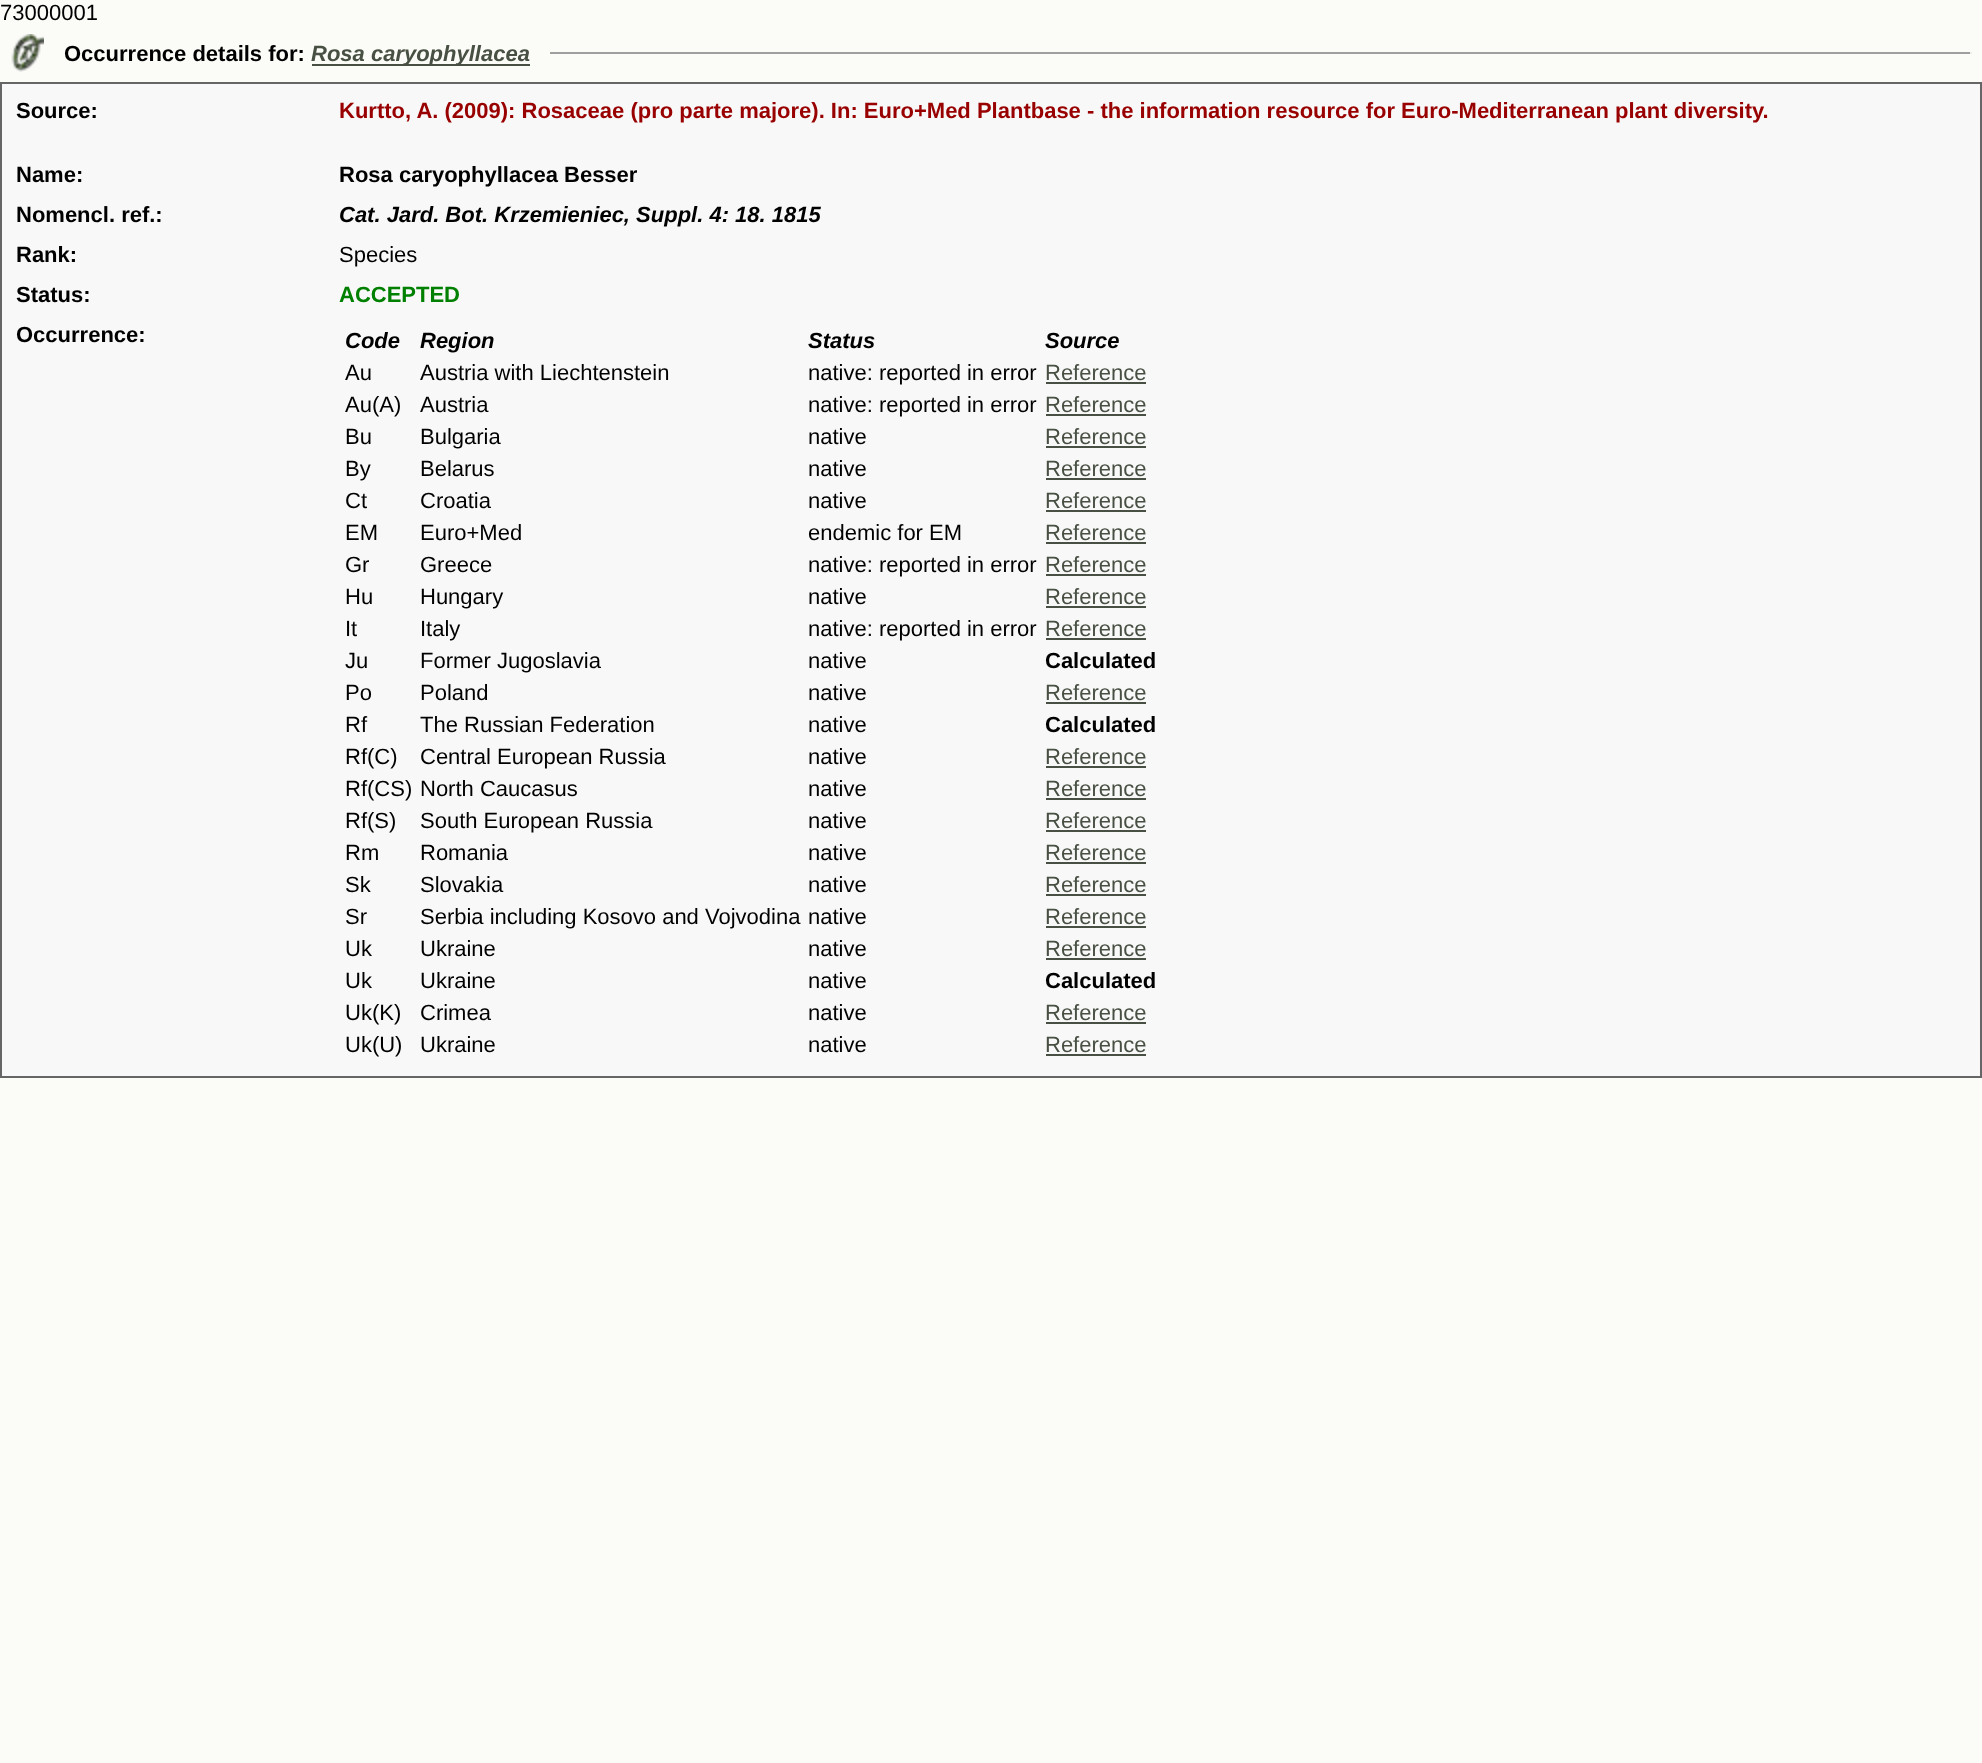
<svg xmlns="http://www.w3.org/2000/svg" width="1982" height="1763">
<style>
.a{font:22px Liberation Sans;fill:#000}
.b{font:bold 22px Liberation Sans;fill:#000}
.c{font:italic bold 22px Liberation Sans;fill:#485043}
.d{font:bold 22px Liberation Sans;fill:#900}
.e{font:italic bold 22px Liberation Sans;fill:#000}
.f{font:bold 22px Liberation Sans;fill:#008000}
.g{font:22px Liberation Sans;fill:#485043}
</style>
<rect width="100%" height="100%" fill="#fbfbf7"/>
<image href="1.png" x="11" y="34" width="33" height="38"/>
<path fill="#485043" d="M312 64h218v2H312z"/>
<path fill="#9f9f9f" d="M550 52h1422v2H550z"/>
<path fill="#eee" d="M1970 52h2v2H1970z"/>
<path fill="#666" d="M0 82h1982v2H0z"/>
<path fill="#666" d="M1980 82h2v996H1980z"/>
<path fill="#666" d="M0 1076h1982v2H0z"/>
<path fill="#666" d="M0 82h2v996H0z"/>
<path fill="#f8f8f8" d="M2 84h1978v992H2z"/>
<path fill="#485043" d="M1046 382h100v2H1046z"/>
<path fill="#485043" d="M1046 414h100v2H1046z"/>
<path fill="#485043" d="M1046 446h100v2H1046z"/>
<path fill="#485043" d="M1046 478h100v2H1046z"/>
<path fill="#485043" d="M1046 510h100v2H1046z"/>
<path fill="#485043" d="M1046 542h100v2H1046z"/>
<path fill="#485043" d="M1046 574h100v2H1046z"/>
<path fill="#485043" d="M1046 606h100v2H1046z"/>
<path fill="#485043" d="M1046 638h100v2H1046z"/>
<path fill="#485043" d="M1046 702h100v2H1046z"/>
<path fill="#485043" d="M1046 766h100v2H1046z"/>
<path fill="#485043" d="M1046 798h100v2H1046z"/>
<path fill="#485043" d="M1046 830h100v2H1046z"/>
<path fill="#485043" d="M1046 862h100v2H1046z"/>
<path fill="#485043" d="M1046 894h100v2H1046z"/>
<path fill="#485043" d="M1046 926h100v2H1046z"/>
<path fill="#485043" d="M1046 958h100v2H1046z"/>
<path fill="#485043" d="M1046 1022h100v2H1046z"/>
<path fill="#485043" d="M1046 1054h100v2H1046z"/>
<text class="a" x="0" y="20">73000001</text>
<text class="b" x="64" y="61">Occurrence details for:</text>
<text class="c" x="311" y="61">Rosa caryophyllacea</text>
<text class="b" x="16" y="118">Source:</text>
<text class="d" x="339" y="118">Kurtto, A. (2009): Rosaceae (pro parte majore). In: Euro+Med Plantbase - the information resource for Euro-Mediterranean plant diversity.</text>
<text class="b" x="16" y="182">Name:</text>
<text class="b" x="339" y="182">Rosa caryophyllacea Besser</text>
<text class="b" x="16" y="222">Nomencl. ref.:</text>
<text class="e" x="339" y="222">Cat. Jard. Bot. Krzemieniec, Suppl. 4: 18. 1815</text>
<text class="b" x="16" y="262">Rank:</text>
<text class="a" x="339" y="262">Species</text>
<text class="b" x="16" y="302">Status:</text>
<text class="f" x="339" y="302">ACCEPTED</text>
<text class="b" x="16" y="342">Occurrence:</text>
<text class="e" x="345" y="348">Code</text>
<text class="e" x="420" y="348">Region</text>
<text class="e" x="808" y="348">Status</text>
<text class="e" x="1045" y="348">Source</text>
<text class="a" x="345" y="380">Au</text>
<text class="a" x="420" y="380">Austria with Liechtenstein</text>
<text class="a" x="808" y="380">native: reported in error</text>
<text class="g" x="1045" y="380">Reference</text>
<text class="a" x="345" y="412">Au(A)</text>
<text class="a" x="420" y="412">Austria</text>
<text class="a" x="808" y="412">native: reported in error</text>
<text class="g" x="1045" y="412">Reference</text>
<text class="a" x="345" y="444">Bu</text>
<text class="a" x="420" y="444">Bulgaria</text>
<text class="a" x="808" y="444">native</text>
<text class="g" x="1045" y="444">Reference</text>
<text class="a" x="345" y="476">By</text>
<text class="a" x="420" y="476">Belarus</text>
<text class="a" x="808" y="476">native</text>
<text class="g" x="1045" y="476">Reference</text>
<text class="a" x="345" y="508">Ct</text>
<text class="a" x="420" y="508">Croatia</text>
<text class="a" x="808" y="508">native</text>
<text class="g" x="1045" y="508">Reference</text>
<text class="a" x="345" y="540">EM</text>
<text class="a" x="420" y="540">Euro+Med</text>
<text class="a" x="808" y="540">endemic for EM</text>
<text class="g" x="1045" y="540">Reference</text>
<text class="a" x="345" y="572">Gr</text>
<text class="a" x="420" y="572">Greece</text>
<text class="a" x="808" y="572">native: reported in error</text>
<text class="g" x="1045" y="572">Reference</text>
<text class="a" x="345" y="604">Hu</text>
<text class="a" x="420" y="604">Hungary</text>
<text class="a" x="808" y="604">native</text>
<text class="g" x="1045" y="604">Reference</text>
<text class="a" x="345" y="636">It</text>
<text class="a" x="420" y="636">Italy</text>
<text class="a" x="808" y="636">native: reported in error</text>
<text class="g" x="1045" y="636">Reference</text>
<text class="a" x="345" y="668">Ju</text>
<text class="a" x="420" y="668">Former Jugoslavia</text>
<text class="a" x="808" y="668">native</text>
<text class="b" x="1045" y="668">Calculated</text>
<text class="a" x="345" y="700">Po</text>
<text class="a" x="420" y="700">Poland</text>
<text class="a" x="808" y="700">native</text>
<text class="g" x="1045" y="700">Reference</text>
<text class="a" x="345" y="732">Rf</text>
<text class="a" x="420" y="732">The Russian Federation</text>
<text class="a" x="808" y="732">native</text>
<text class="b" x="1045" y="732">Calculated</text>
<text class="a" x="345" y="764">Rf(C)</text>
<text class="a" x="420" y="764">Central European Russia</text>
<text class="a" x="808" y="764">native</text>
<text class="g" x="1045" y="764">Reference</text>
<text class="a" x="345" y="796">Rf(CS)</text>
<text class="a" x="420" y="796">North Caucasus</text>
<text class="a" x="808" y="796">native</text>
<text class="g" x="1045" y="796">Reference</text>
<text class="a" x="345" y="828">Rf(S)</text>
<text class="a" x="420" y="828">South European Russia</text>
<text class="a" x="808" y="828">native</text>
<text class="g" x="1045" y="828">Reference</text>
<text class="a" x="345" y="860">Rm</text>
<text class="a" x="420" y="860">Romania</text>
<text class="a" x="808" y="860">native</text>
<text class="g" x="1045" y="860">Reference</text>
<text class="a" x="345" y="892">Sk</text>
<text class="a" x="420" y="892">Slovakia</text>
<text class="a" x="808" y="892">native</text>
<text class="g" x="1045" y="892">Reference</text>
<text class="a" x="345" y="924">Sr</text>
<text class="a" x="420" y="924">Serbia including Kosovo and Vojvodina</text>
<text class="a" x="808" y="924">native</text>
<text class="g" x="1045" y="924">Reference</text>
<text class="a" x="345" y="956">Uk</text>
<text class="a" x="420" y="956">Ukraine</text>
<text class="a" x="808" y="956">native</text>
<text class="g" x="1045" y="956">Reference</text>
<text class="a" x="345" y="988">Uk</text>
<text class="a" x="420" y="988">Ukraine</text>
<text class="a" x="808" y="988">native</text>
<text class="b" x="1045" y="988">Calculated</text>
<text class="a" x="345" y="1020">Uk(K)</text>
<text class="a" x="420" y="1020">Crimea</text>
<text class="a" x="808" y="1020">native</text>
<text class="g" x="1045" y="1020">Reference</text>
<text class="a" x="345" y="1052">Uk(U)</text>
<text class="a" x="420" y="1052">Ukraine</text>
<text class="a" x="808" y="1052">native</text>
<text class="g" x="1045" y="1052">Reference</text>
</svg>
